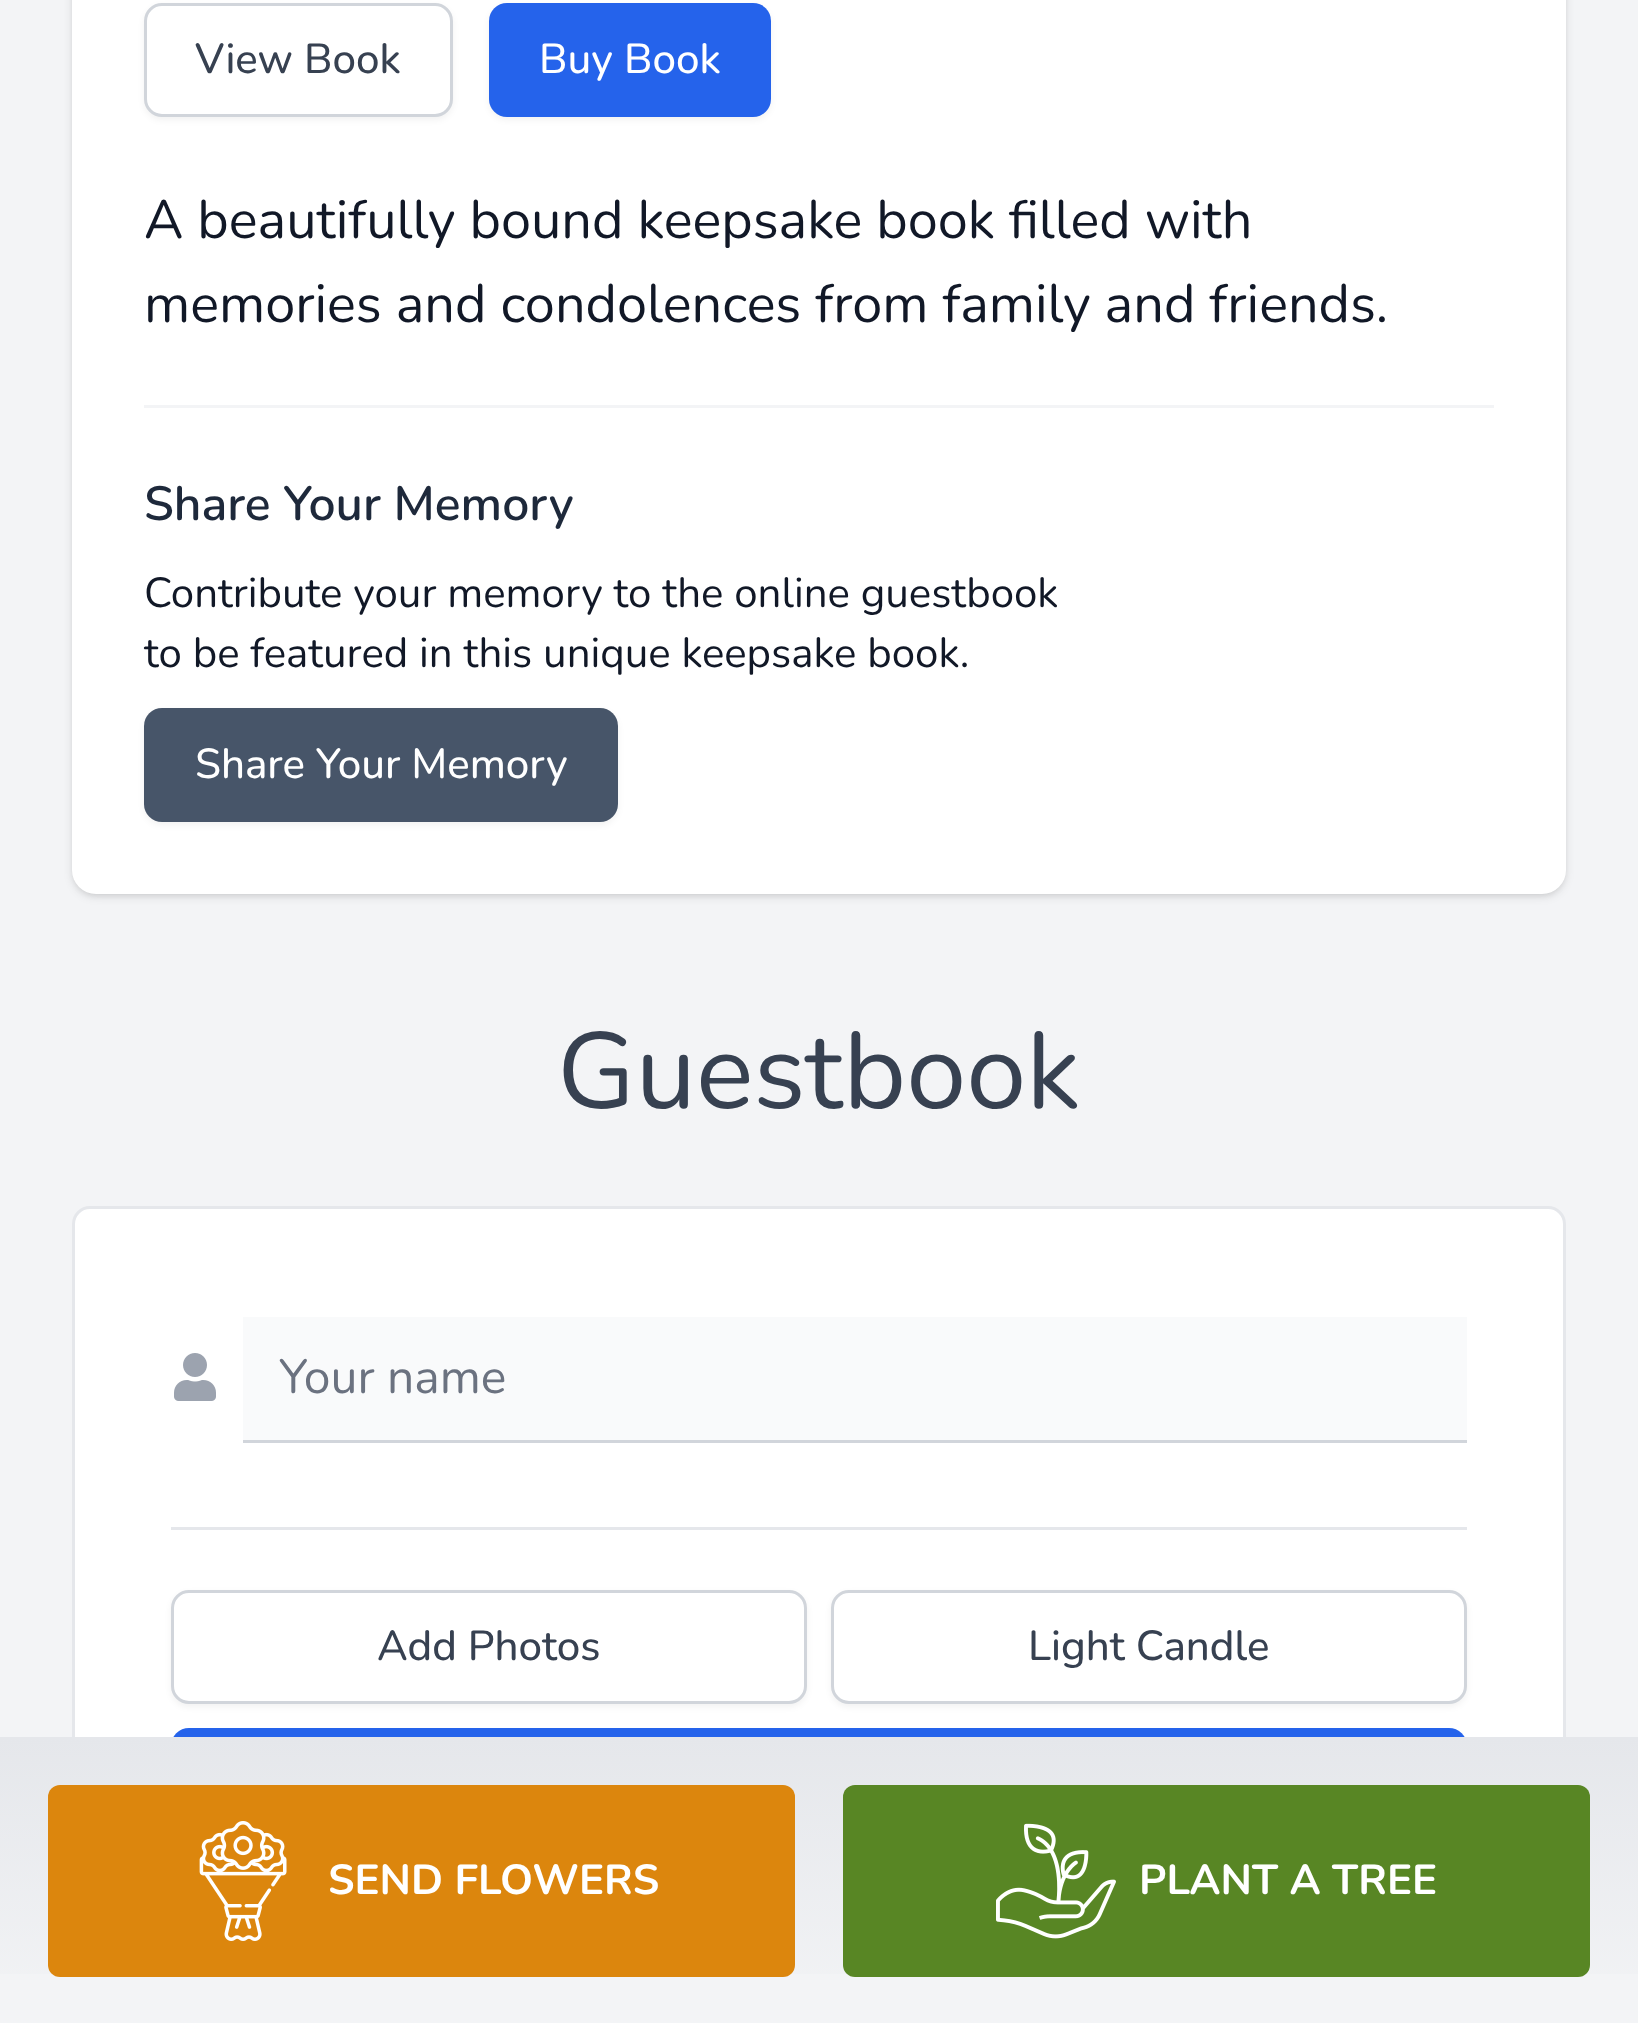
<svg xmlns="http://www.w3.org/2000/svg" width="1638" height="2023">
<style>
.a{font:500 42px Nunito;fill:#374151}
.b{font:500 42px Nunito;fill:#fff}
.c{font:54px Nunito;fill:#111827}
.d{font:600 48px Nunito;fill:#1e293b}
.e{font:42px Nunito;fill:#111827}
.f{font:108px Nunito;fill:#374151}
.g{font:48px Nunito;fill:#6b7280}
.h{font:bold 42px Nunito;fill:#fff}
</style>
<defs>
<linearGradient id="g1" gradientUnits="userSpaceOnUse" x1="819" y1="1737" x2="819" y2="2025"><stop offset="0" stop-color="#e5e7eb"/><stop offset="1" stop-color="#f3f4f6"/></linearGradient>
</defs>
<rect width="100%" height="100%" fill="#f3f4f6"/>
<rect fill="#0000001a" filter="blur(3px)" x="75" y="-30" width="1488" height="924" rx="21"/>
<rect fill="#0000001a" filter="blur(4.5px)" x="72" y="-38" width="1494" height="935" rx="24"/>
<rect fill="#fff" x="72" y="-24" width="1494" height="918" rx="24"/>
<rect fill="#0000000d" filter="blur(3px)" x="144" y="6" width="309" height="114" rx="18"/>
<rect fill="#fff" stroke="#d1d5db" stroke-width="3" x="145.5" y="4.5" width="306" height="111" rx="16.5"/>
<rect fill="#0000000d" filter="blur(3px)" x="489" y="6" width="282" height="114" rx="18"/>
<rect fill="#2563eb" x="489" y="3" width="282" height="114" rx="18"/>
<path fill="#f3f4f6" d="M144 405h1350v3H144z"/>
<rect fill="#0000000d" filter="blur(3px)" x="144" y="711" width="474" height="114" rx="18"/>
<rect fill="#475569" x="144" y="708" width="474" height="114" rx="18"/>
<rect fill="#fff" stroke="#e5e7eb" stroke-width="3" x="73.5" y="1207.5" width="1491" height="732" rx="16.5"/>
<image href="1.png" x="174" y="1353" width="42" height="48"/>
<path fill="#d1d5db" d="M243 1440h1224v3H243z"/>
<path fill="#f9fafb" d="M243 1317h1224v123H243z"/>
<path fill="#e5e7eb" d="M171 1527h1296v3H171z"/>
<rect fill="#0000000d" filter="blur(3px)" x="171" y="1593" width="636" height="114" rx="18"/>
<rect fill="#fff" stroke="#d1d5db" stroke-width="3" x="172.5" y="1591.5" width="633" height="111" rx="16.5"/>
<rect fill="#0000000d" filter="blur(3px)" x="831" y="1593" width="636" height="114" rx="18"/>
<rect fill="#fff" stroke="#d1d5db" stroke-width="3" x="832.5" y="1591.5" width="633" height="111" rx="16.5"/>
<rect fill="#2563eb" x="171" y="1728" width="1296" height="114" rx="18"/>
<path fill="url(#g1)" d="M0 1737h1638v237H0z"/>
<rect fill="#dc860d" x="48" y="1785" width="747" height="192" rx="12"/>
<image href="2.png" x="199" y="1821" width="88" height="120"/>
<rect fill="#588624" x="843" y="1785" width="747" height="192" rx="12"/>
<image href="3.png" x="996" y="1823" width="120" height="116"/>
<text class="a" x="195" y="73">View Book</text>
<text class="b" x="539" y="73">Buy Book</text>
<text class="c" x="144" y="238">A beautifully bound keepsake book filled with</text>
<text class="c" x="144" y="322">memories and condolences from family and friends.</text>
<text class="d" x="144" y="520">Share Your Memory</text>
<text class="e" x="144" y="607">Contribute your memory to the online guestbook</text>
<text class="e" x="144" y="667">to be featured in this unique keepsake book.</text>
<text class="b" x="195" y="778">Share Your Memory</text>
<text class="f" x="557" y="1108">Guestbook</text>
<text class="g" x="279" y="1393">Your name</text>
<text class="a" x="377" y="1660">Add Photos</text>
<text class="a" x="1028" y="1660">Light Candle</text>
<text class="h" x="328" y="1894">SEND FLOWERS</text>
<text class="h" x="1139" y="1894">PLANT A TREE</text>
</svg>
